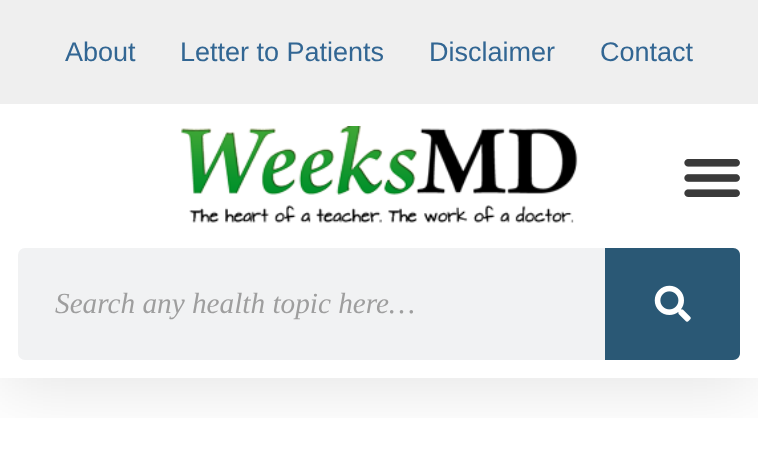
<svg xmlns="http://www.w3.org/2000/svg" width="758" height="458">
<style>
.a{font:27px Liberation Sans;fill:#326693}
.b{font:italic 29.25px Liberation Serif;fill:#9e9e9e}
</style>
<defs>
<clipPath id="clip1"><path d="M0 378h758v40H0z"/></clipPath>
</defs>
<rect width="100%" height="100%" fill="#efefef"/>
<path fill="#fff" d="M0 378h758v80H0z"/>
<g clip-path="url(#clip1)">
<path fill="#0000001a" filter="blur(34px)" d="M0 11h758v378H0z"/>
</g>
<path fill="#fff" d="M0 104h758v274H0z"/>
<image href="1.png" x="180" y="126" width="398" height="97"/>
<image href="2.png" x="684" y="159" width="56" height="38"/>
<rect fill="#f1f2f3" x="18" y="248" width="722" height="112" rx="7"/>
<path fill="#2a5875" d="M605 248h128c4 0 7 3 7 7v98c0 4-3 7-7 7h-128z"/>
<image href="3.png" x="654" y="285" width="37" height="37"/>
<text class="a" x="65" y="61">About</text>
<text class="a" x="180" y="61">Letter to Patients</text>
<text class="a" x="429" y="61">Disclaimer</text>
<text class="a" x="600" y="61">Contact</text>
<text class="b" x="55" y="313">Search any health topic here…</text>
</svg>
